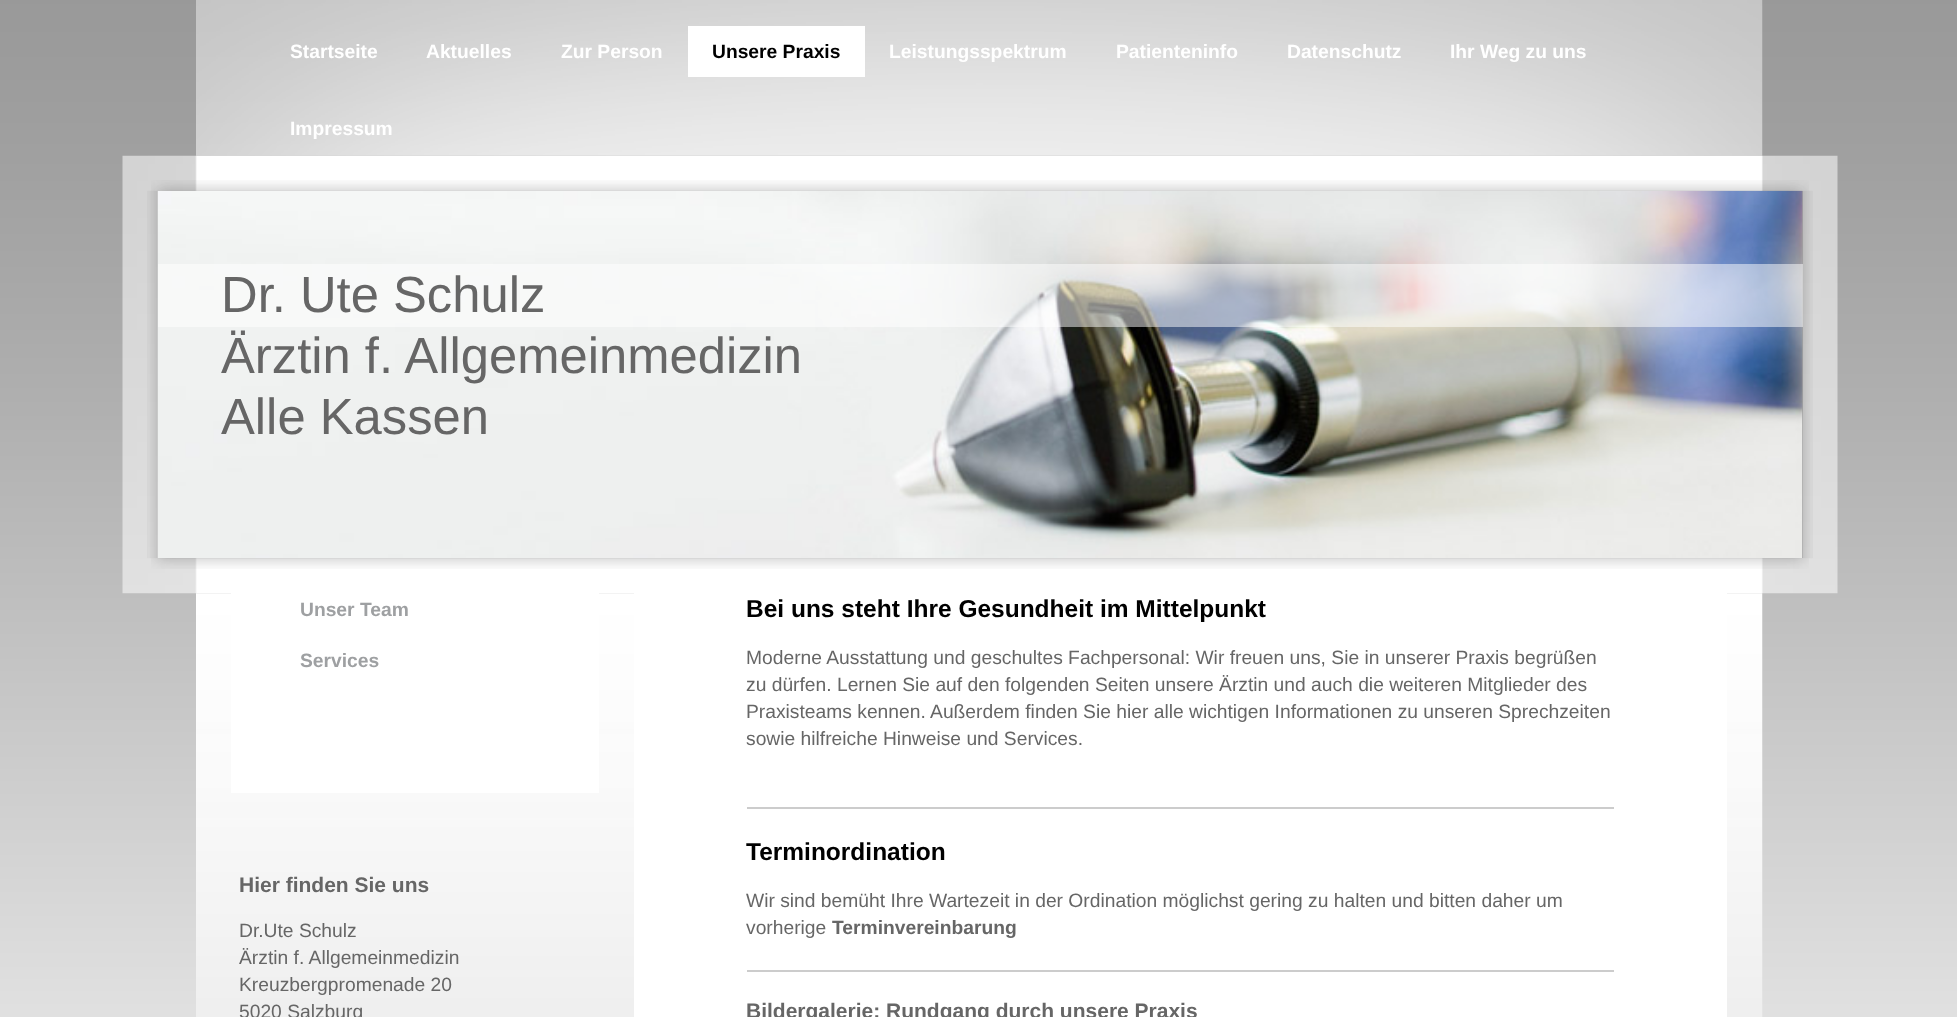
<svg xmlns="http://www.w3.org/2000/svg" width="1957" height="1017">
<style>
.a{font:bold 19.25px Liberation Sans;fill:#fff}
.b{font:bold 19.25px Liberation Sans;fill:#000}
.c{font:50.75px Liberation Sans;fill:#666}
.d{font:bold 19.25px Liberation Sans;fill:#9ea0a2}
.e{font:bold 21px Liberation Sans;fill:#666}
.f{font:19.25px Liberation Sans;fill:#666}
.g{font:bold 24.5px Liberation Sans;fill:#000}
.h{font:bold 19.25px Liberation Sans;fill:#666}
</style>
<rect width="100%" height="100%" fill="#fff"/>
<image href="1.png" x="0" y="0" width="1957" height="1017"/>
<image href="2.png" x="196" y="0" width="1567" height="156"/>
<path fill="#fff" d="M688 26h177v51H688z"/>
<image href="3.png" x="122" y="155" width="1716" height="439"/>
<image href="4.png" x="151" y="180" width="1658" height="11"/>
<image href="5.png" x="147" y="190" width="1666" height="369"/>
<path fill="#a0a0a0" d="M1802 191h1v367H1802z"/>
<image href="6.png" x="157" y="190" width="1646" height="368"/>
<path fill="#ffffff80" d="M158 264h1645v63H158z"/>
<image href="7.png" x="151" y="558" width="1658" height="11"/>
<image href="8.png" x="196" y="593" width="1567" height="424"/>
<path fill="#fff" d="M231 593h368v200H231z"/>
<path fill="#fff" d="M634 593h1093v424H634z"/>
<path fill="#ccc" d="M747 807h867v2H747z"/>
<path fill="#ccc" d="M747 970h867v2H747z"/>
<text class="a" x="290" y="58">Startseite</text>
<text class="a" x="426" y="58">Aktuelles</text>
<text class="a" x="561" y="58">Zur Person</text>
<text class="b" x="712" y="58">Unsere Praxis</text>
<text class="a" x="889" y="58">Leistungsspektrum</text>
<text class="a" x="1116" y="58">Patienteninfo</text>
<text class="a" x="1287" y="58">Datenschutz</text>
<text class="a" x="1450" y="58">Ihr Weg zu uns</text>
<text class="a" x="290" y="135">Impressum</text>
<text class="c" x="221" y="312">Dr. Ute Schulz</text>
<text class="c" x="221" y="373">Ärztin f. Allgemeinmedizin</text>
<text class="c" x="221" y="434">Alle Kassen</text>
<text class="d" x="300" y="616">Unser Team</text>
<text class="d" x="300" y="667">Services</text>
<text class="e" x="239" y="892">Hier finden Sie uns</text>
<text class="f" x="239" y="937">Dr.Ute Schulz</text>
<text class="f" x="239" y="964">Ärztin f. Allgemeinmedizin</text>
<text class="f" x="239" y="991">Kreuzbergpromenade 20</text>
<text class="f" x="239" y="1018">5020 Salzburg</text>
<text class="g" x="746" y="617">Bei uns steht Ihre Gesundheit im Mittelpunkt</text>
<text class="f" x="746" y="664">Moderne Ausstattung und geschultes Fachpersonal: Wir freuen uns, Sie in unserer Praxis begrüßen</text>
<text class="f" x="746" y="691">zu dürfen. Lernen Sie auf den folgenden Seiten unsere Ärztin und auch die weiteren Mitglieder des</text>
<text class="f" x="746" y="718">Praxisteams kennen. Außerdem finden Sie hier alle wichtigen Informationen zu unseren Sprechzeiten</text>
<text class="f" x="746" y="745">sowie hilfreiche Hinweise und Services.</text>
<text class="g" x="746" y="860">Terminordination</text>
<text class="f" x="746" y="907">Wir sind bemüht Ihre Wartezeit in der Ordination möglichst gering zu halten und bitten daher um</text>
<text class="f" x="746" y="934">vorherige</text>
<text class="h" x="832" y="934">Terminvereinbarung</text>
<text class="e" x="746" y="1018">Bildergalerie: Rundgang durch unsere Praxis</text>
</svg>
